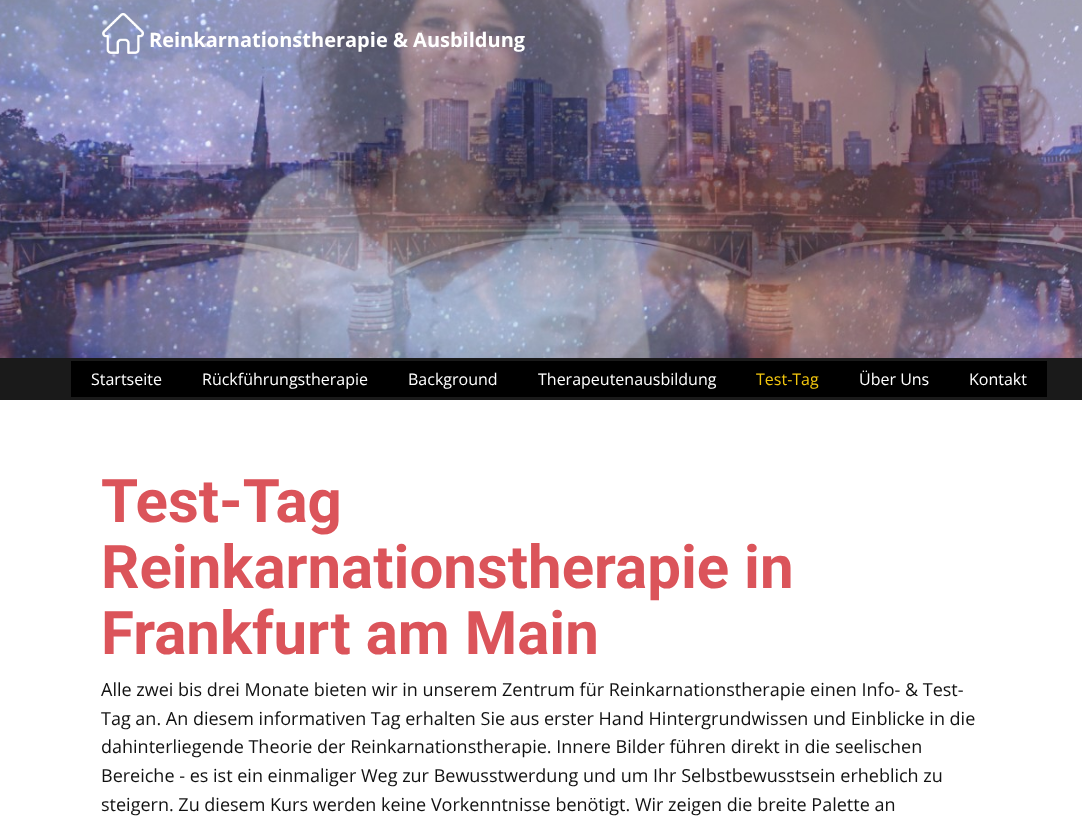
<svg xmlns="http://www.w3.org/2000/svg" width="1082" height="832">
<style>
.a{font:bold 20px Open Sans;fill:#fff}
.b{font:16px Open Sans;fill:#fff}
.c{font:16px Open Sans;fill:#f1c50e}
.d{font:bold 60px Roboto;fill:#db545a}
.e{font:18px Open Sans;fill:#111}
</style>
<rect width="100%" height="100%" fill="#fff"/>
<image href="1.png" x="0" y="0" width="1082" height="358"/>
<image href="2.png" x="102" y="13" width="42" height="41"/>
<path fill="#1a1a1a" d="M0 358h1082v42H0z"/>
<path fill="#000" d="M71 361h976v36H71z"/>
<text class="a" x="149" y="47">Reinkarnationstherapie &amp; Ausbildung</text>
<text class="b" x="91" y="385">Startseite</text>
<text class="b" x="202" y="385">Rückführungstherapie</text>
<text class="b" x="408" y="385">Background</text>
<text class="b" x="538" y="385">Therapeutenausbildung</text>
<text class="c" x="756" y="385">Test-Tag</text>
<text class="b" x="859" y="385">Über Uns</text>
<text class="b" x="969" y="385">Kontakt</text>
<text class="d" x="101" y="522">Test-Tag</text>
<text class="d" x="101" y="588">Reinkarnationstherapie in</text>
<text class="d" x="101" y="654">Frankfurt am Main</text>
<text class="e" x="101" y="696">Alle zwei bis drei Monate bieten wir in unserem Zentrum für Reinkarnationstherapie einen Info- &amp; Test-</text>
<text class="e" x="101" y="725">Tag an. An diesem informativen Tag erhalten Sie aus erster Hand Hintergrundwissen und Einblicke in die</text>
<text class="e" x="101" y="753">dahinterliegende Theorie der Reinkarnationstherapie. Innere Bilder führen direkt in die seelischen</text>
<text class="e" x="101" y="782">Bereiche - es ist ein einmaliger Weg zur Bewusstwerdung und um Ihr Selbstbewusstsein erheblich zu</text>
<text class="e" x="101" y="811">steigern. Zu diesem Kurs werden keine Vorkenntnisse benötigt. Wir zeigen die breite Palette an</text>
</svg>
